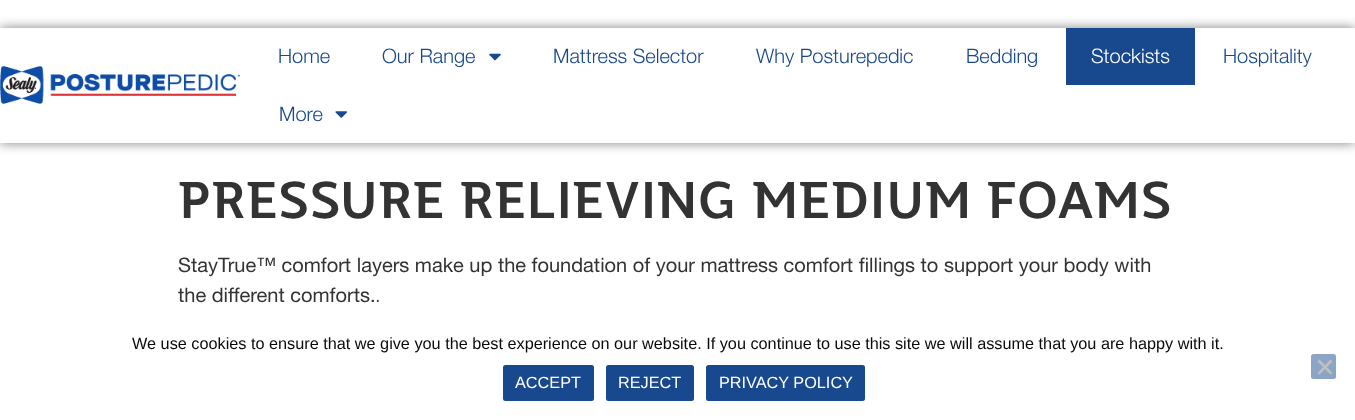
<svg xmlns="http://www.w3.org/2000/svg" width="1355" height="420">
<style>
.a{font:300 20px Helvetica Neue;fill:#18488d}
.b{font:300 20px Helvetica Neue;fill:#fff}
.c{font:500 50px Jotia;fill:#333}
.d{font:20px Helvetica Neue;fill:#333}
.e{font:300 20px Helvetica Neue;fill:#333}
.f{font:16.25px Liberation Sans;fill:#0a0a0a}
.g{font:16.25px Liberation Sans;fill:#fff}
</style>
<defs>
<clipPath id="clip1"><path d="M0 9h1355v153h-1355zm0 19h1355v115h-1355z" clip-rule="evenodd"/></clipPath>
</defs>
<rect width="100%" height="100%" fill="#fff"/>
<g clip-path="url(#clip1)">
<path fill="#00000080" filter="blur(6px)" d="M0 28h1355v115H0z"/>
</g>
<image href="1.png" x="1" y="142" width="1354" height="1"/>
<image href="2.png" x="0" y="66" width="240" height="38"/>
<image href="3.png" x="489" y="53" width="12" height="8"/>
<path fill="#18488d" d="M1066 28h129v57H1066z"/>
<image href="4.png" x="335" y="111" width="12" height="7"/>
<rect fill="#8ca4c6" x="1311" y="354" width="25" height="25" rx="2.5"/>
<path fill="#c0c0c0" d="M1330.5 359.5l2 2l-13 13l-2-1.5z"/>
<path fill="#c0c0c0" d="M1317.5 361.5l2-2l13 13.5l-2 1.5z"/>
<rect fill="#18488d" x="503" y="365" width="91" height="36" rx="2.5"/>
<rect fill="#18488d" x="606" y="365" width="88" height="36" rx="2.5"/>
<rect fill="#18488d" x="706" y="365" width="159" height="36" rx="2.5"/>
<text class="a" x="278" y="63">Home</text>
<text class="a" x="382" y="63">Our Range</text>
<text class="a" x="553" y="63">Mattress Selector</text>
<text class="a" x="756" y="63">Why Posturepedic</text>
<text class="a" x="966" y="63">Bedding</text>
<text class="b" x="1091" y="63">Stockists</text>
<text class="a" x="1223" y="63">Hospitality</text>
<text class="a" x="279" y="121">More</text>
<text class="c" x="178" y="218">PRESSURE RELIEVING MEDIUM FOAMS</text>
<text class="d" x="178" y="272">StayTrue™ comfort layers make up the foundation of your mattress comfort fillings to support your body with</text>
<text class="d" x="178" y="302">the different comforts.</text>
<text class="e" x="375" y="302">.</text>
<text class="f" x="132" y="349">We use cookies to ensure that we give you the best experience on our website. If you continue to use this site we will assume that you are happy with it.</text>
<text class="g" x="515" y="388">ACCEPT</text>
<text class="g" x="618" y="388">REJECT</text>
<text class="g" x="719" y="388">PRIVACY POLICY</text>
</svg>
